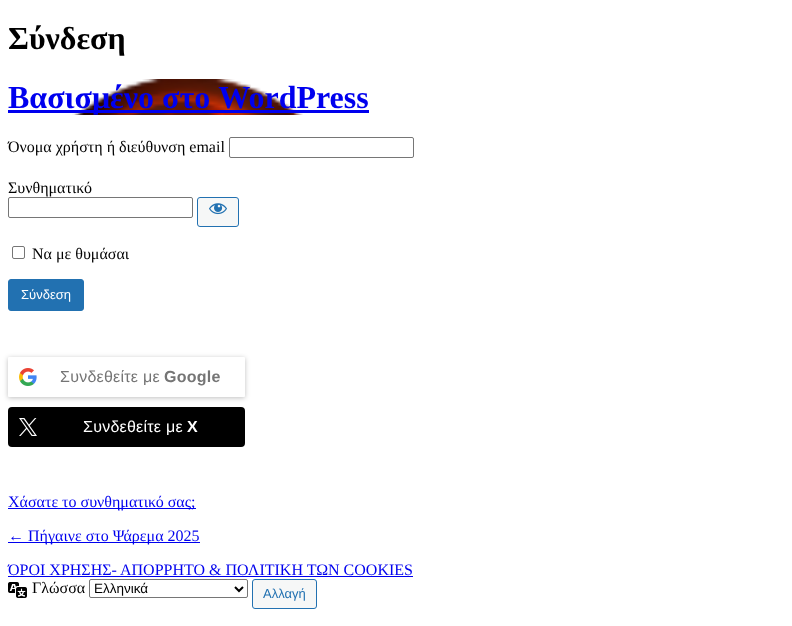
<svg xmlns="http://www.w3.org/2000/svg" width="792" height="626">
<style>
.a{font:bold 32px Liberation Serif;fill:#000}
.b{font:bold 32px Liberation Serif;fill:#00e}
.c{font:16px Liberation Serif;fill:#000}
.d{font:13px Liberation Sans;fill:#fff}
.e{font:16px Liberation Sans;letter-spacing:0.25px;fill:#757575}
.f{font:bold 16px Liberation Sans;letter-spacing:0.25px;fill:#757575}
.g{font:16px Liberation Sans;letter-spacing:0.25px;fill:#fff}
.h{font:bold 16px Liberation Sans;letter-spacing:0.25px;fill:#fff}
.i{font:16px Liberation Serif;fill:#00e}
.j{font:13.5px Liberation Sans;fill:#000}
.k{font:13px Liberation Sans;fill:#2271b1}
</style>
<rect width="100%" height="100%" fill="#fff"/>
<image href="1.png" x="72" y="79" width="231" height="36"/>
<path fill="#00e" d="M8 110h361v3H8z"/>
<rect fill="none" stroke="#767676" x="229.5" y="137.5" width="184" height="20" rx="1.5"/>
<rect fill="none" stroke="#767676" x="8.5" y="197.5" width="184" height="20" rx="1.5"/>
<rect fill="#f6f7f7" stroke="#2271b1" x="197.5" y="197.5" width="41" height="29" rx="2.5"/>
<image href="2.png" x="209" y="203" width="18" height="12"/>
<rect fill="none" stroke="#767676" x="12.5" y="246.5" width="12" height="12" rx="1.5"/>
<rect fill="#2271b1" stroke="#2271b1" x="8.5" y="279.5" width="75" height="31" rx="2.5"/>
<rect fill="#00000040" filter="blur(2.5px)" x="8" y="358" width="237" height="40" rx="1"/>
<rect fill="#fff" x="8" y="357" width="237" height="40" rx="1"/>
<image href="3.png" x="19" y="368" width="18" height="18"/>
<rect fill="#000" x="8" y="407" width="237" height="40" rx="4"/>
<image href="4.png" x="19" y="418" width="18" height="18"/>
<path fill="#00e" d="M8 508h188v1H8z"/>
<path fill="#00e" d="M8 542h192v1H8z"/>
<path fill="#00e" d="M8 576h405v1H8z"/>
<image href="5.png" x="8" y="582" width="19" height="16"/>
<rect fill="none" stroke="#767676" x="89.5" y="579.5" width="158" height="18" rx="1.5"/>
<path fill="none" stroke="#000" stroke-width="2" d="M235 587l4 4l4-4"/>
<rect fill="#f6f7f7" stroke="#2271b1" x="252.5" y="579.5" width="64" height="29" rx="2.5"/>
<text class="a" x="8" y="49">Σύνδεση</text>
<text class="b" x="8" y="108">Βασισμένο στο WordPress</text>
<text class="c" x="8" y="152">Όνομα χρήστη ή διεύθυνση email</text>
<text class="c" x="8" y="193">Συνθηματικό</text>
<text class="c" x="32" y="259">Να με θυμάσαι</text>
<text class="d" x="21" y="299">Σύνδεση</text>
<text class="e" x="60" y="382">Συνδεθείτε με</text>
<text class="f" x="164" y="382">Google</text>
<text class="g" x="83" y="432">Συνδεθείτε με</text>
<text class="h" x="187" y="432">X</text>
<text class="i" x="8" y="507">Χάσατε το συνθηματικό σας;</text>
<text class="i" x="8" y="541">← Πήγαινε στο Ψάρεμα 2025</text>
<text class="i" x="8" y="575">ΌΡΟΙ ΧΡΗΣΗΣ- ΑΠΟΡΡΗΤΟ &amp; ΠΟΛΙΤΙΚΗ ΤΩΝ COOKIES</text>
<text class="c" x="32" y="593">Γλώσσα</text>
<text class="j" x="94" y="593">Ελληνικά</text>
<text class="k" x="263" y="598">Αλλαγή</text>
</svg>
